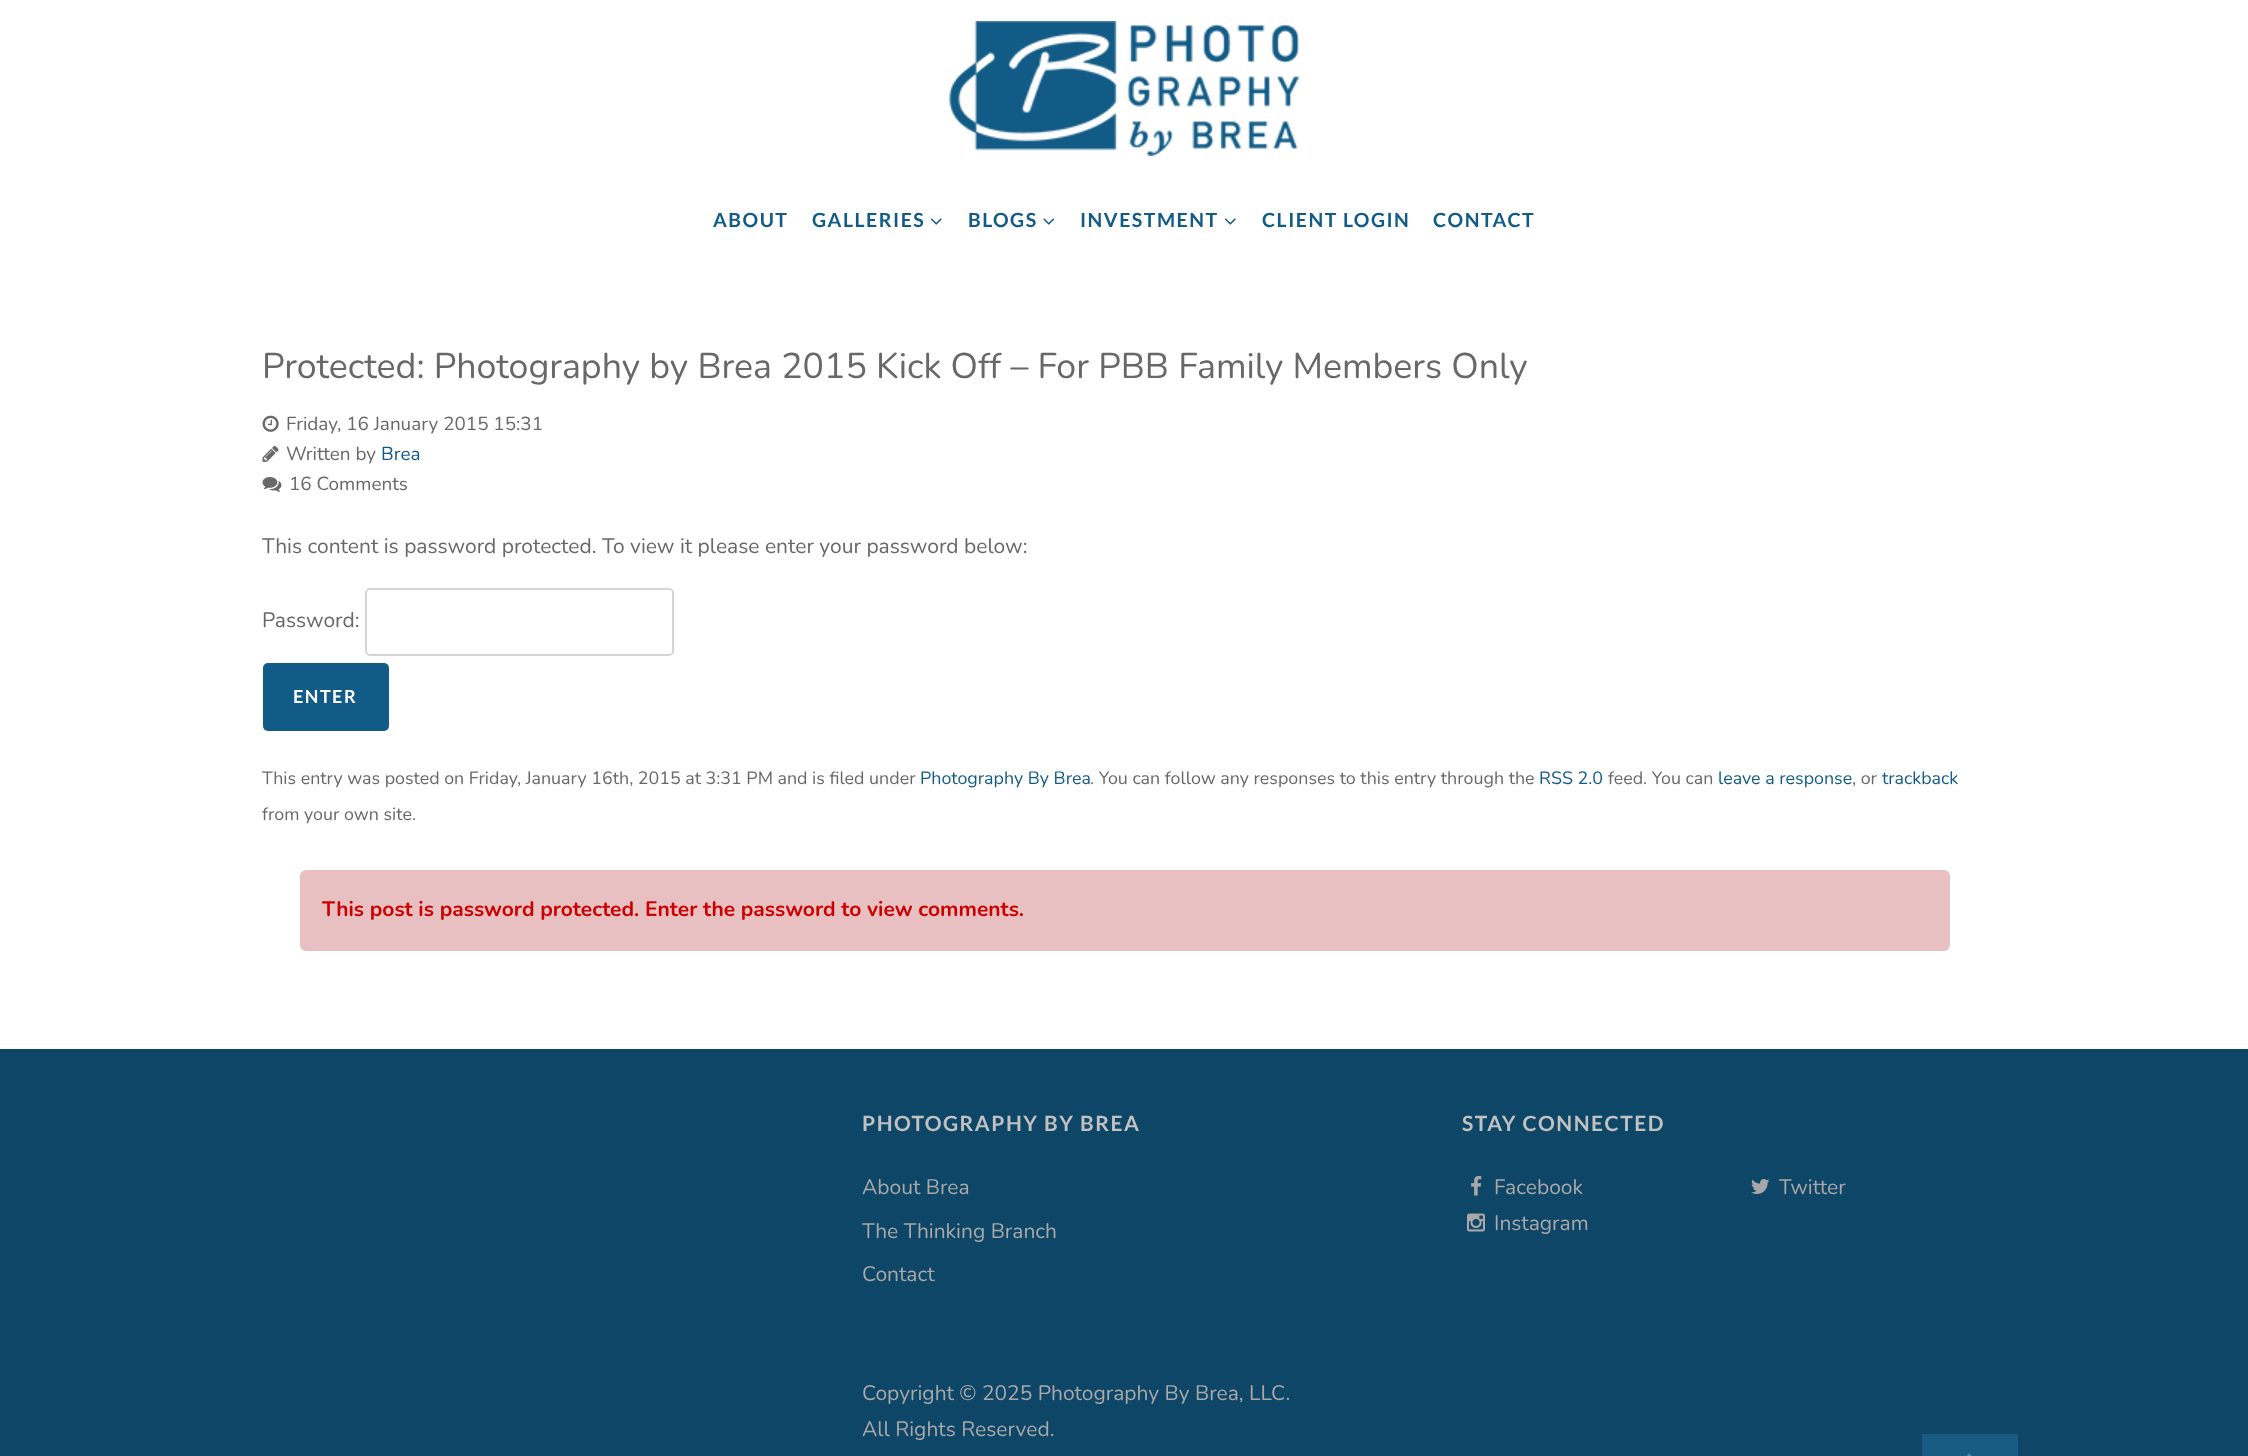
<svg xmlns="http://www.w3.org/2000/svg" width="2248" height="1456">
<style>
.a{font:bold 19.5px Lato;letter-spacing:1.5px;fill:#115b86}
.b{font:35.7px Nunito;fill:#686868}
.c{font:18.9px Nunito;fill:#686868}
.d{font:18.9px Nunito;fill:#115b86}
.e{font:21px Nunito;fill:#686868}
.f{font:bold 18px Lato;letter-spacing:1.5px;fill:#fff}
.g{font:17.85px Nunito;fill:#686868}
.h{font:17.85px Nunito;fill:#115b86}
.i{font:bold 21px Nunito;fill:#c00}
.j{font:bold 21px Lato;letter-spacing:1.5px;fill:#c1c1c1}
.k{font:21px Nunito;fill:#a8a8a8}
</style>
<rect width="100%" height="100%" fill="#fff"/>
<image href="1.png" x="949" y="21" width="350" height="135"/>
<image href="2.png" x="930" y="218" width="12" height="7"/>
<image href="3.png" x="1043" y="218" width="12" height="7"/>
<image href="2.png" x="1224" y="218" width="12" height="7"/>
<image href="4.png" x="262" y="415" width="17" height="17"/>
<image href="5.png" x="262" y="445" width="17" height="17"/>
<image href="6.png" x="262" y="477" width="20" height="15"/>
<rect fill="none" stroke="#d5d5d5" stroke-width="2" x="366" y="589" width="307" height="66" rx="4"/>
<rect fill="#115b86" x="263" y="663" width="126" height="68" rx="5"/>
<rect fill="#e8c0c2" x="300" y="870" width="1650" height="81" rx="6"/>
<path fill="#0e4667" d="M0 1049h2248v407H0z"/>
<image href="7.png" x="1471" y="1176" width="11" height="20"/>
<image href="8.png" x="1751" y="1179" width="19" height="15"/>
<image href="9.png" x="1467" y="1213" width="18" height="19"/>
<path fill="#185c84" d="M1922 1434h96v22H1922z"/>
<image href="10.png" x="1966" y="1453" width="6" height="3"/>
<text class="a" x="713" y="227">ABOUT</text>
<text class="a" x="812" y="227">GALLERIES</text>
<text class="a" x="968" y="227">BLOGS</text>
<text class="a" x="1080" y="227">INVESTMENT</text>
<text class="a" x="1262" y="227">CLIENT LOGIN</text>
<text class="a" x="1433" y="227">CONTACT</text>
<text class="b" x="262" y="378">Protected: Photography by Brea 2015 Kick Off – For PBB Family Members Only</text>
<text class="c" x="286" y="430">Friday, 16 January 2015 15:31</text>
<text class="c" x="286" y="460">Written by</text>
<text class="d" x="381" y="460">Brea</text>
<text class="c" x="289" y="490">16 Comments</text>
<text class="e" x="262" y="553">This content is password protected. To view it please enter your password below:</text>
<text class="e" x="262" y="627">Password:</text>
<text class="f" x="293" y="703">ENTER</text>
<text class="g" x="262" y="784">This entry was posted on Friday, January 16th, 2015 at 3:31 PM and is filed under</text>
<text class="h" x="920" y="784">Photography By Brea</text>
<text class="g" x="1090" y="784">. You can follow any responses to this entry through the</text>
<text class="h" x="1539" y="784">RSS 2.0</text>
<text class="g" x="1608" y="784">feed. You can</text>
<text class="h" x="1718" y="784">leave a response</text>
<text class="g" x="1852" y="784">, or</text>
<text class="h" x="1882" y="784">trackback</text>
<text class="g" x="262" y="820">from your own site.</text>
<text class="i" x="322" y="916">This post is password protected. Enter the password to view comments.</text>
<text class="j" x="862" y="1131">PHOTOGRAPHY BY BREA</text>
<text class="k" x="862" y="1194">About Brea</text>
<text class="k" x="862" y="1238">The Thinking Branch</text>
<text class="k" x="862" y="1281">Contact</text>
<text class="j" x="1462" y="1131">STAY CONNECTED</text>
<text class="k" x="1494" y="1194">Facebook</text>
<text class="k" x="1779" y="1194">Twitter</text>
<text class="k" x="1494" y="1230">Instagram</text>
<text class="k" x="862" y="1400">Copyright © 2025 Photography By Brea, LLC.</text>
<text class="k" x="862" y="1436">All Rights Reserved.</text>
</svg>
